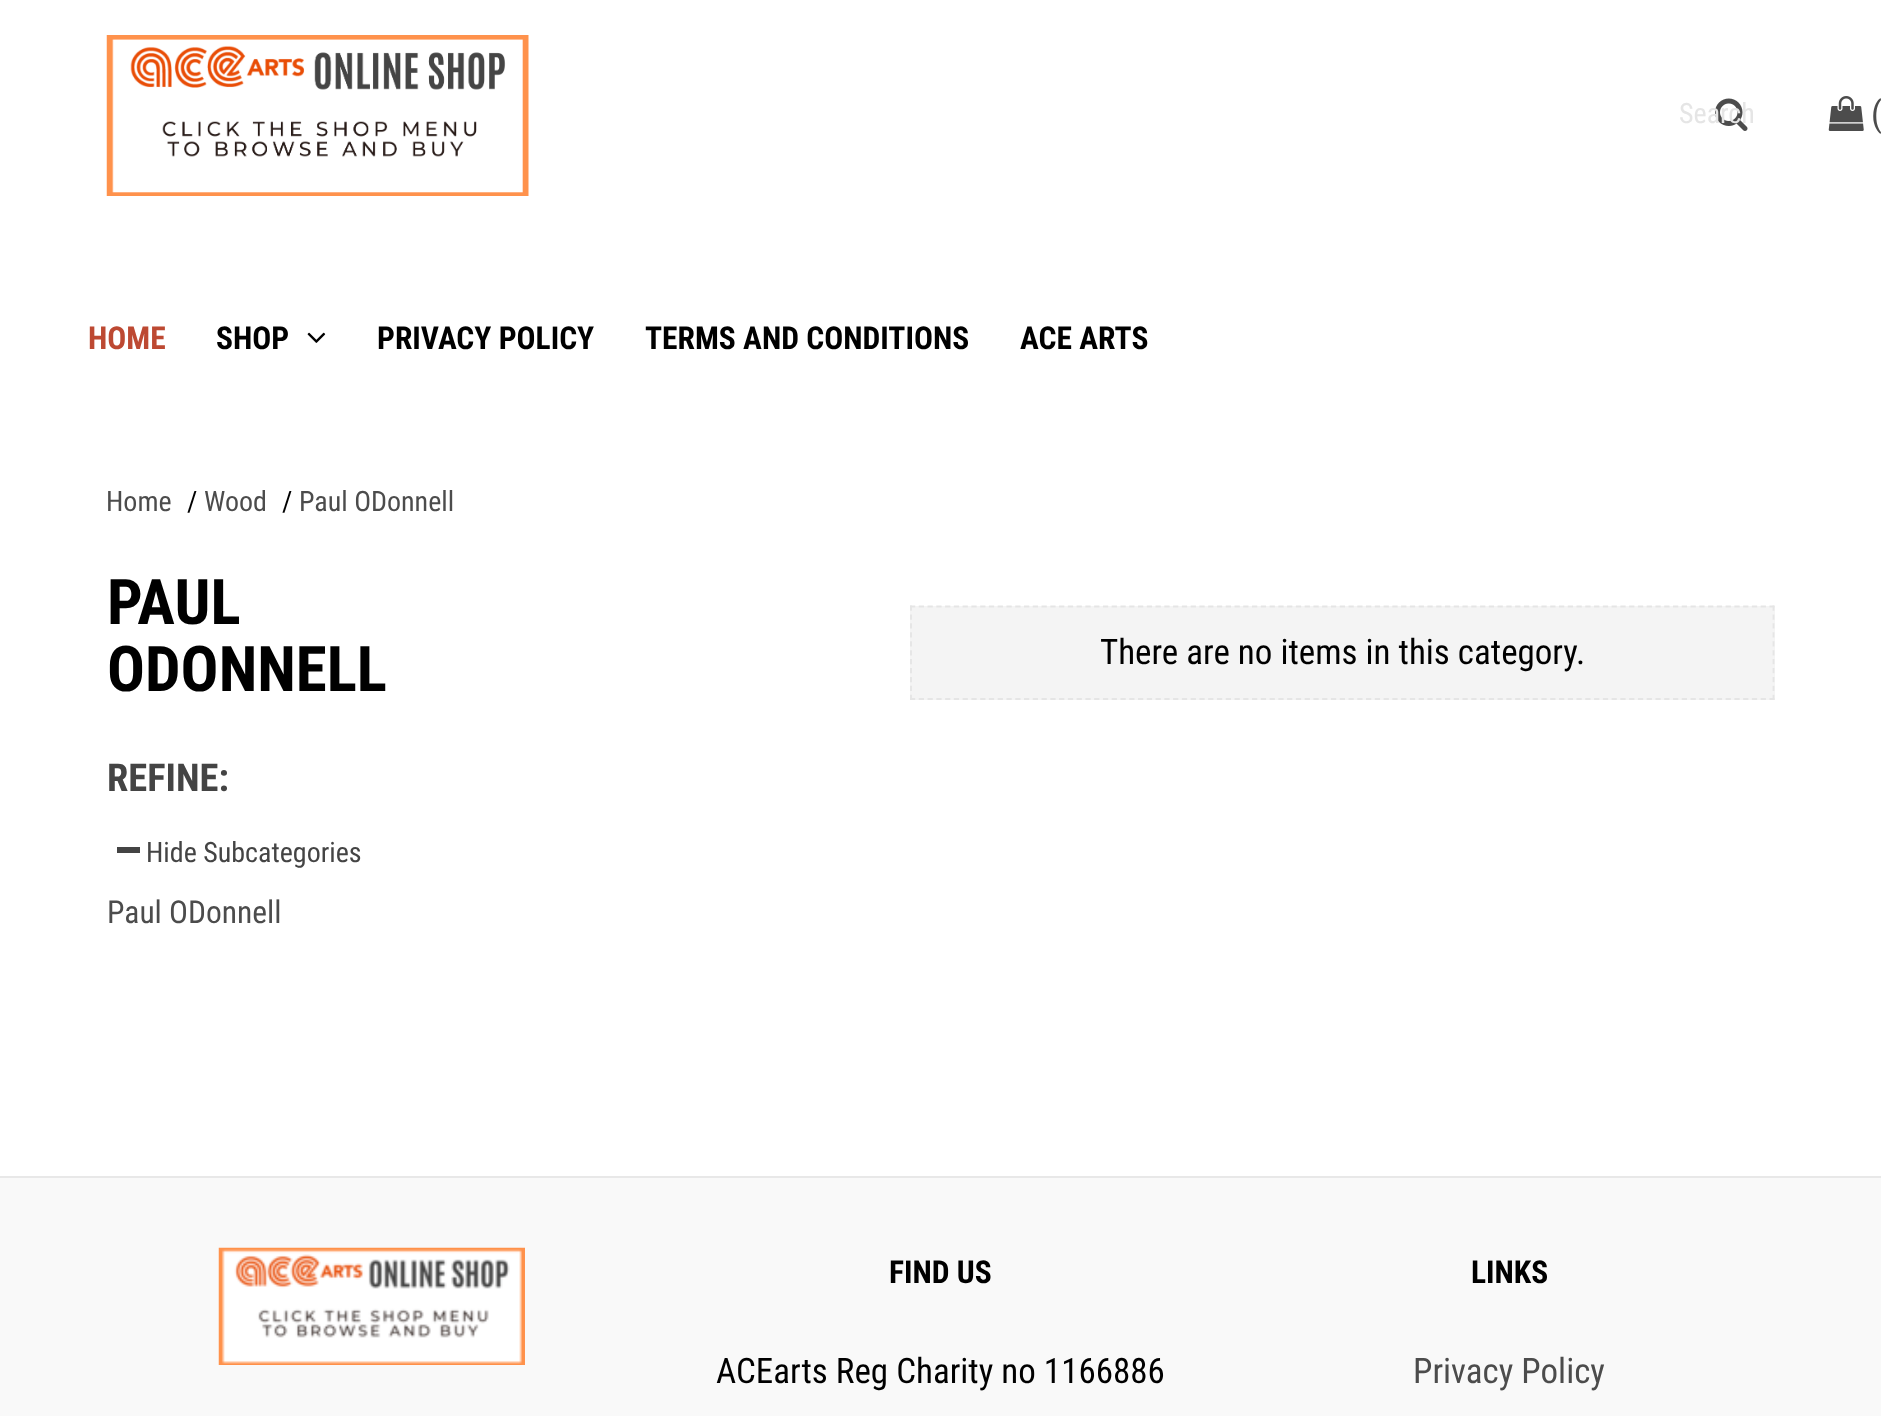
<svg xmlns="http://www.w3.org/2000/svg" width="1881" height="1416">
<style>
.a{font:28px Roboto Condensed;fill:#e5e5e5}
.b{font:35px Roboto Condensed;fill:#4c4c4c}
.c{font:bold 31.5px Roboto Condensed;fill:#bd4932}
.d{font:bold 31.5px Roboto Condensed;fill:#000}
.e{font:28px Roboto Condensed;fill:#4c4c4c}
.f{font:28px Roboto Condensed;fill:#000}
.g{font:bold 63px Roboto Condensed;fill:#000}
.h{font:bold 38.5px Roboto Condensed;fill:#444}
.i{font:28px Roboto Condensed;fill:#444}
.j{font:31.5px Roboto Condensed;fill:#4c4c4c}
.k{font:35px Roboto Condensed;fill:#000}
</style>
<rect width="100%" height="100%" fill="#fff"/>
<image href="1.png" x="106" y="35" width="423" height="161"/>
<image href="2.png" x="1715" y="98" width="33" height="33"/>
<image href="3.png" x="1828" y="96" width="36" height="35"/>
<image href="4.png" x="307" y="332" width="19" height="11"/>
<path fill="#444" d="M117 847h23v6H117z"/>
<path fill="#f4f4f4" d="M910 606h865v94H910z"/>
<path fill="none" stroke="#e5e5e5" stroke-width="1.8" stroke-dasharray="5.25 3.52" d="M910 606.5h864.5"/>
<path fill="none" stroke="#e5e5e5" stroke-width="1.8" stroke-dasharray="5.25 3.68" d="M1773.5 605.5v94.5"/>
<path fill="none" stroke="#e5e5e5" stroke-width="1.8" stroke-dasharray="5.25 3.52" d="M910 699h864.5"/>
<path fill="none" stroke="#e5e5e5" stroke-width="1.8" stroke-dasharray="5.25 3.68" d="M911 605.5v94.5"/>
<path fill="#f9f9f9" d="M0 1178h1881v238H0z"/>
<path fill="#e8e8e8" d="M0 1176h1881v2H0z"/>
<image href="5.png" x="218" y="1247" width="307" height="118"/>
<text class="a" x="1679" y="123">Search</text>
<text class="b" x="1871" y="126">(</text>
<text class="c" x="88" y="349">HOME</text>
<text class="d" x="216" y="349">SHOP</text>
<text class="d" x="377" y="349">PRIVACY POLICY</text>
<text class="d" x="645" y="349">TERMS AND CONDITIONS</text>
<text class="d" x="1020" y="349">ACE ARTS</text>
<text class="e" x="106" y="511">Home</text>
<text class="f" x="187" y="511">/</text>
<text class="e" x="204" y="511">Wood</text>
<text class="f" x="282" y="511">/</text>
<text class="e" x="299" y="511">Paul ODonnell</text>
<text class="g" x="107" y="624">PAUL</text>
<text class="g" x="107" y="691">ODONNELL</text>
<text class="h" x="107" y="791">REFINE:</text>
<text class="i" x="146" y="862">Hide Subcategories</text>
<text class="j" x="107" y="923">Paul ODonnell</text>
<text class="k" x="1100" y="664">There are no items in this category.</text>
<text class="d" x="889" y="1283">FIND US</text>
<text class="k" x="716" y="1383">ACEarts Reg Charity no 1166886</text>
<text class="d" x="1471" y="1283">LINKS</text>
<text class="b" x="1413" y="1383">Privacy Policy</text>
</svg>
